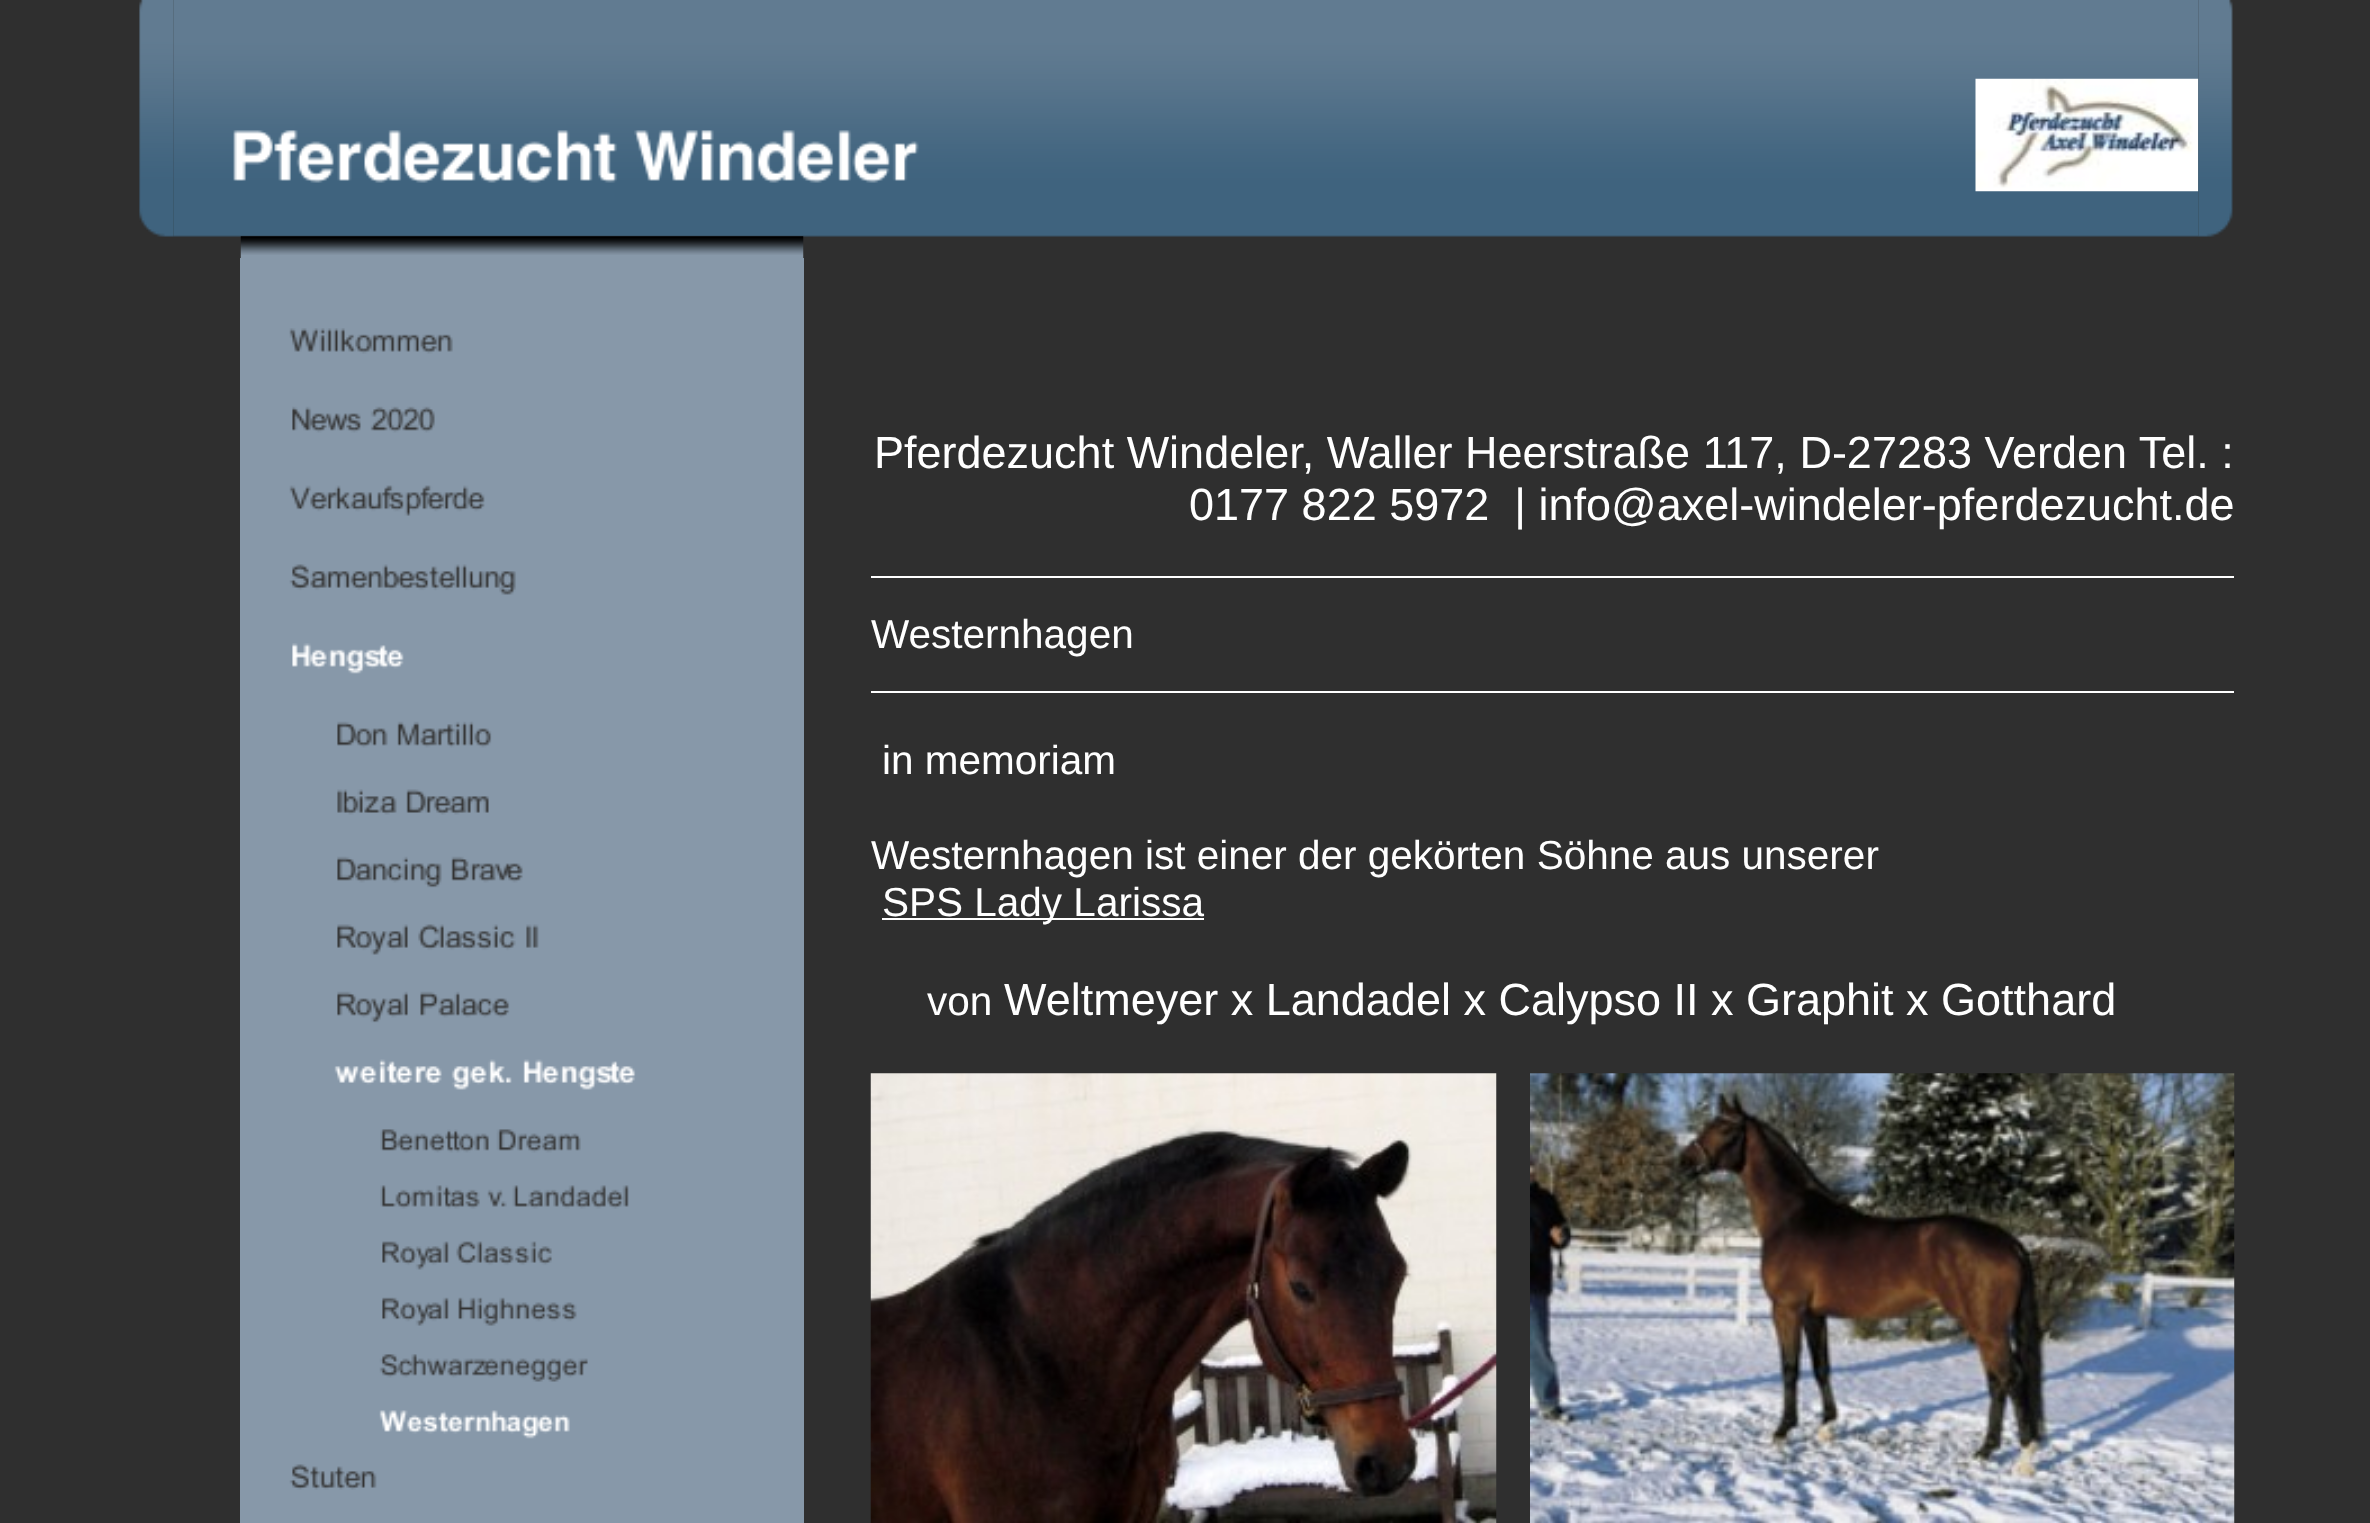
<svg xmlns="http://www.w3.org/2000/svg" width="2370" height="1523">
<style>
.a{font:45px Liberation Sans;fill:#fff}
.b{font:40.5px Liberation Sans;fill:#fff}
</style>
<rect width="100%" height="100%" fill="#2f2f2f"/>
<image href="2.png" x="173" y="0" width="2026" height="237"/>
<image href="1.png" x="139" y="0" width="35" height="237"/>
<image href="3.png" x="233" y="130" width="686" height="53"/>
<image href="4.png" x="1975" y="78" width="224" height="114"/>
<image href="5.png" x="2198" y="0" width="35" height="237"/>
<image href="6.png" x="240" y="236" width="564" height="22"/>
<path fill="#8798a9" d="M240 258h564v1265H240z"/>
<image href="7.png" x="289" y="328" width="164" height="26"/>
<image href="8.png" x="292" y="406" width="143" height="27"/>
<image href="9.png" x="289" y="485" width="196" height="31"/>
<image href="10.png" x="289" y="564" width="227" height="31"/>
<image href="11.png" x="292" y="643" width="112" height="31"/>
<image href="12.png" x="337" y="721" width="155" height="27"/>
<image href="13.png" x="337" y="789" width="152" height="26"/>
<image href="14.png" x="337" y="856" width="186" height="32"/>
<image href="15.png" x="337" y="924" width="202" height="31"/>
<image href="16.png" x="337" y="991" width="173" height="32"/>
<image href="17.png" x="334" y="1059" width="302" height="31"/>
<image href="18.png" x="380" y="1129" width="201" height="24"/>
<image href="19.png" x="380" y="1185" width="249" height="24"/>
<image href="20.png" x="382" y="1241" width="170" height="29"/>
<image href="21.png" x="382" y="1297" width="195" height="29"/>
<image href="22.png" x="379" y="1354" width="209" height="28"/>
<image href="23.png" x="379" y="1410" width="191" height="29"/>
<image href="24.png" x="289" y="1464" width="88" height="26"/>
<path fill="#fff" d="M871 576h1363v2H871z"/>
<path fill="#fff" d="M871 691h1363v2H871z"/>
<path fill="#fff" d="M882 918h322v2H882z"/>
<image href="25.png" x="870" y="1073" width="627" height="450"/>
<image href="26.png" x="1530" y="1073" width="705" height="450"/>
<text class="a" x="874" y="468">Pferdezucht Windeler, Waller Heerstraße 117, D-27283 Verden Tel. :</text>
<text class="a" xml:space="preserve" x="1189" y="520">0177 822 5972  | info@axel-windeler-pferdezucht.de</text>
<text class="b" x="871" y="648">Westernhagen</text>
<text class="b" x="882" y="774">in memoriam</text>
<text class="b" x="871" y="869">Westernhagen ist einer der gekörten Söhne aus unserer</text>
<text class="b" x="882" y="916">SPS Lady Larissa</text>
<text class="b" x="927" y="1015">von</text>
<text class="a" x="1004" y="1015">Weltmeyer x Landadel x Calypso II x Graphit x Gotthard</text>
</svg>
